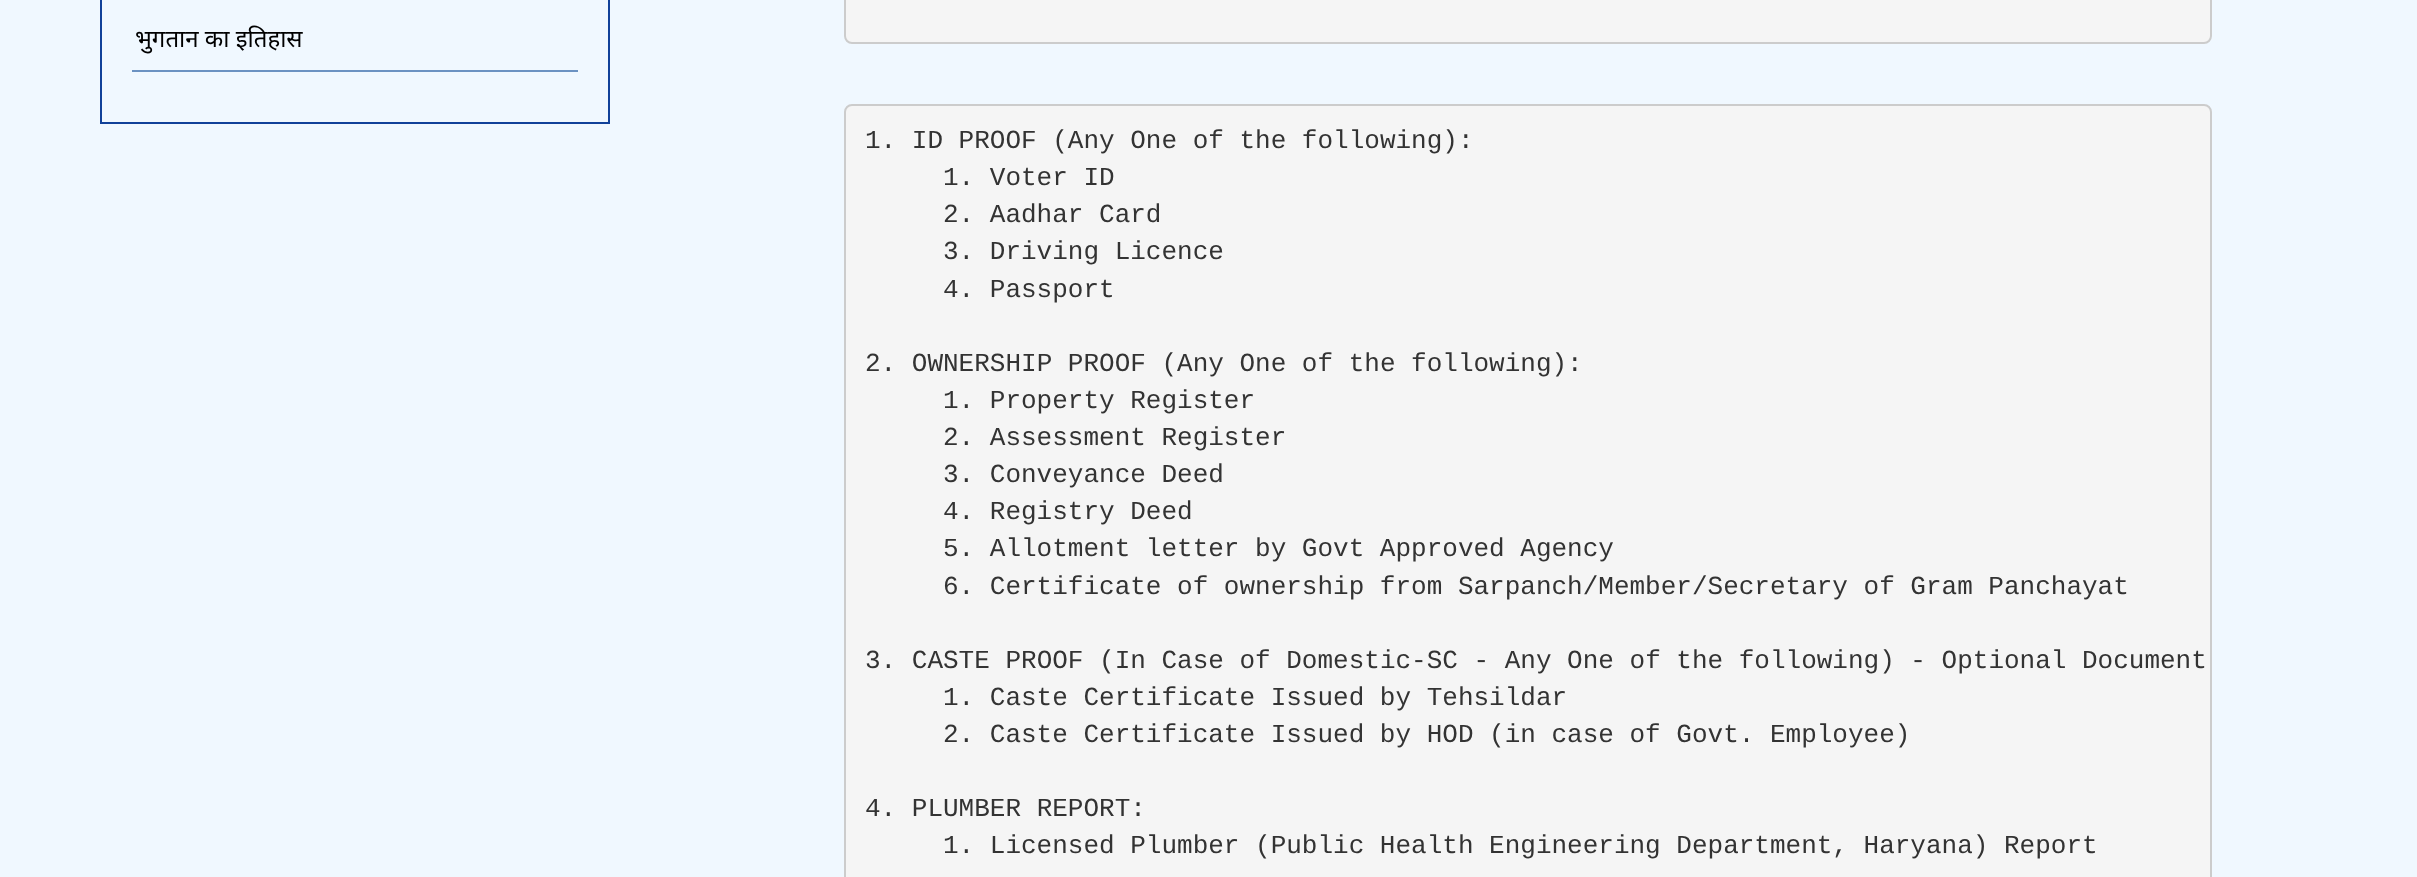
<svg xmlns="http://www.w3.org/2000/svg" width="2417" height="877">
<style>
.a{font:24px Noto Sans;fill:#000}
.b{font:26px Liberation Mono;fill:#333}
</style>
<rect width="100%" height="100%" fill="#f0f8ff"/>
<path fill="none" stroke="#114199" stroke-width="2" d="M101 -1h508v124H101z"/>
<path fill="#6b92c2" d="M132 70h446v2H132z"/>
<rect fill="#f5f5f5" stroke="#ccc" stroke-width="2" x="845" y="-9" width="1366" height="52" rx="7"/>
<rect fill="#f5f5f5" stroke="#ccc" stroke-width="2" x="845" y="105" width="1366" height="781" rx="7"/>
<text class="a" x="135" y="47">भुगतान का इतिहास</text>
<text class="b" x="865" y="148">1. ID PROOF (Any One of the following):</text>
<text class="b" x="943" y="185">1. Voter ID</text>
<text class="b" x="943" y="222">2. Aadhar Card</text>
<text class="b" x="943" y="259">3. Driving Licence</text>
<text class="b" x="943" y="297">4. Passport</text>
<text class="b" x="865" y="371">2. OWNERSHIP PROOF (Any One of the following):</text>
<text class="b" x="943" y="408">1. Property Register</text>
<text class="b" x="943" y="445">2. Assessment Register</text>
<text class="b" x="943" y="482">3. Conveyance Deed</text>
<text class="b" x="943" y="519">4. Registry Deed</text>
<text class="b" x="943" y="556">5. Allotment letter by Govt Approved Agency</text>
<text class="b" x="943" y="594">6. Certificate of ownership from Sarpanch/Member/Secretary of Gram Panchayat</text>
<text class="b" x="865" y="668">3. CASTE PROOF (In Case of Domestic-SC - Any One of the following) - Optional Document</text>
<text class="b" x="943" y="705">1. Caste Certificate Issued by Tehsildar</text>
<text class="b" x="943" y="742">2. Caste Certificate Issued by HOD (in case of Govt. Employee)</text>
<text class="b" x="865" y="816">4. PLUMBER REPORT:</text>
<text class="b" x="943" y="853">1. Licensed Plumber (Public Health Engineering Department, Haryana) Report</text>
</svg>
